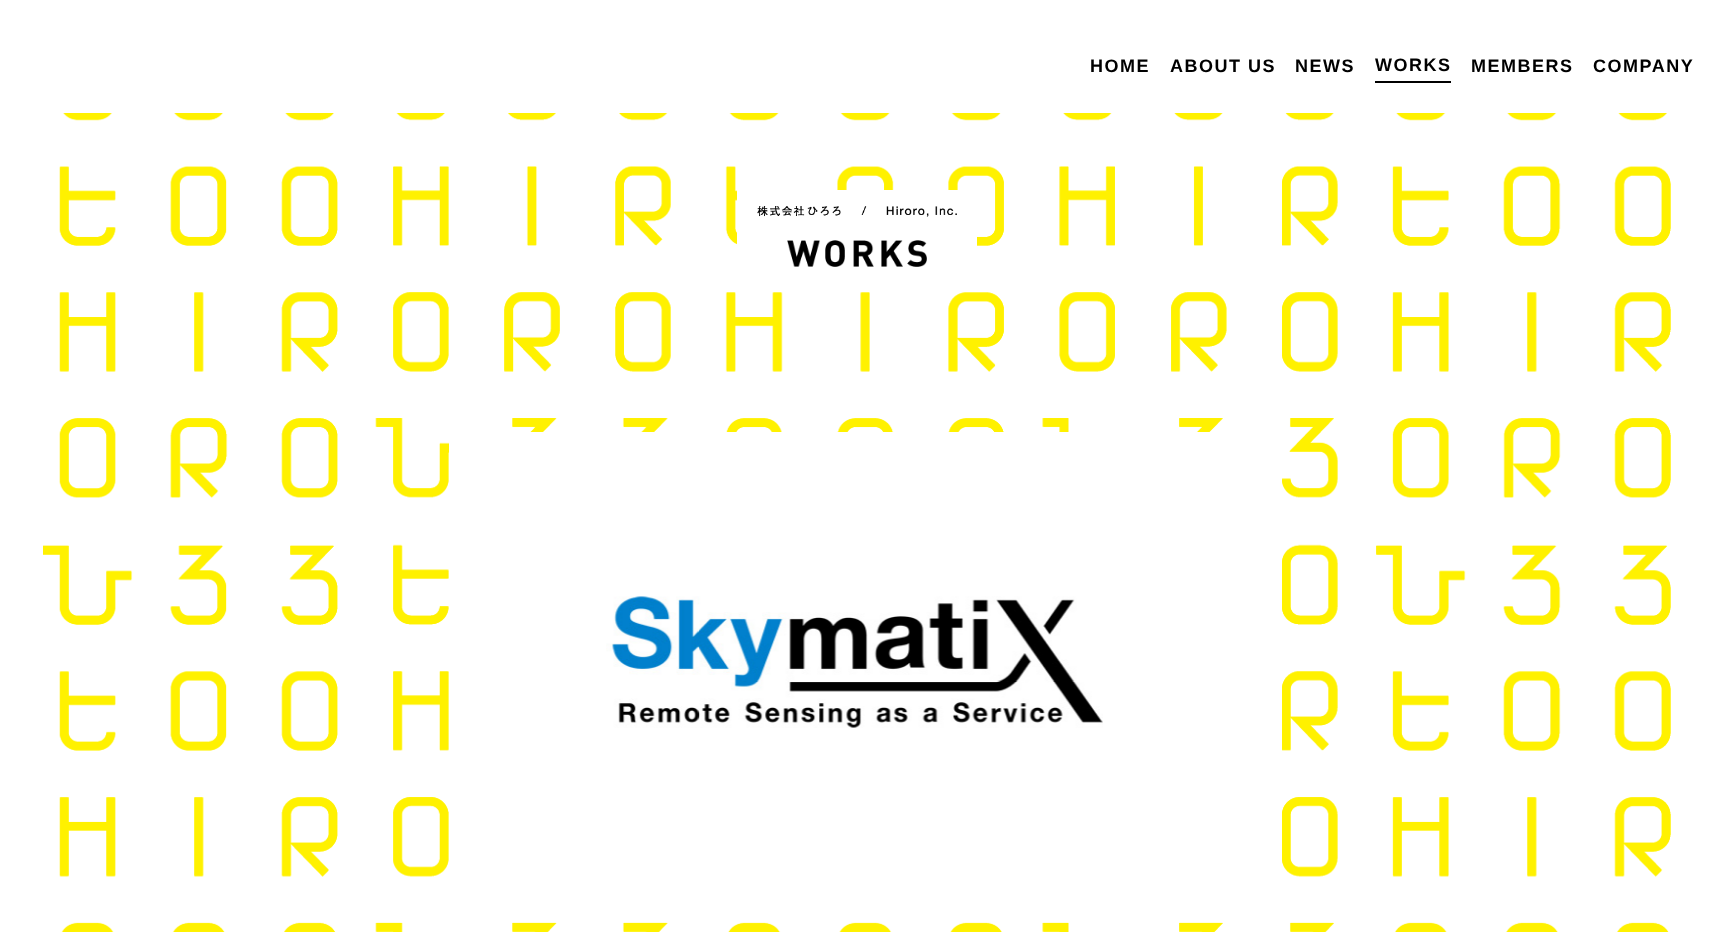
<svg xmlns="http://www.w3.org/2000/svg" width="1714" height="932">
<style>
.a{font:bold 18px Liberation Sans;letter-spacing:1.5px;fill:#000}
</style>
<rect width="100%" height="100%" fill="#fff"/>
<image href="1.png" x="43" y="113" width="1628" height="819"/>
<image href="2.png" x="43" y="113" width="1628" height="819"/>
<path fill="#000" d="M1375 81h76v2H1375z"/>
<path fill="#fff" d="M737 190h240v56H737z"/>
<image href="3.png" x="757" y="206" width="200" height="11"/>
<image href="4.png" x="787" y="240" width="140" height="27"/>
<path fill="#fff" d="M449 432h778v445H449z"/>
<image href="5.png" x="606" y="596" width="497" height="132"/>
<text class="a" x="1090" y="72">HOME</text>
<text class="a" x="1170" y="72">ABOUT US</text>
<text class="a" x="1295" y="72">NEWS</text>
<text class="a" x="1375" y="71">WORKS</text>
<text class="a" x="1471" y="72">MEMBERS</text>
<text class="a" x="1593" y="72">COMPANY</text>
</svg>
